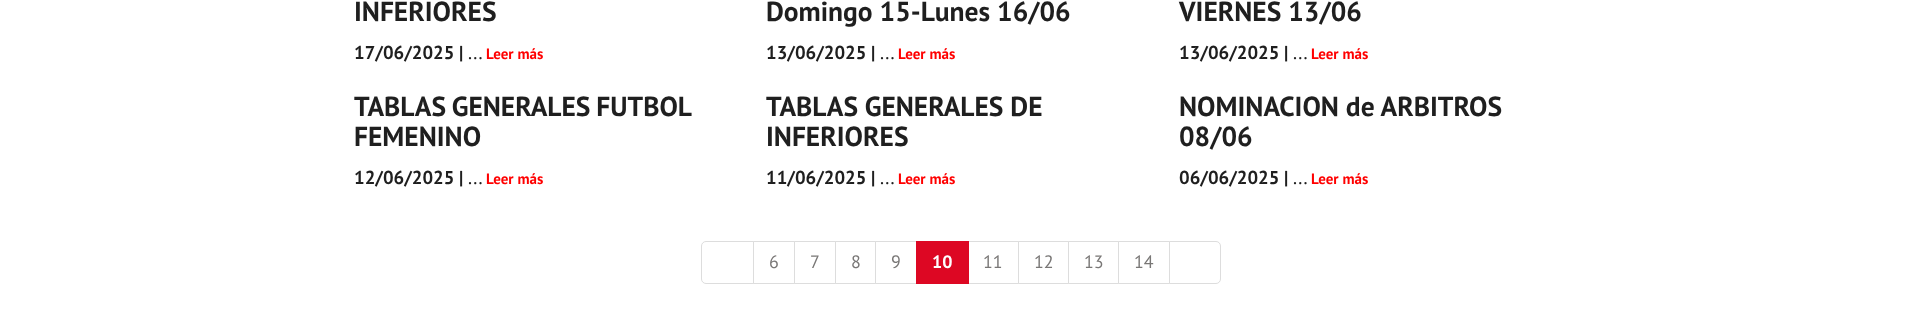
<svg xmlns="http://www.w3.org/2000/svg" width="1922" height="324">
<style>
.a{font:bold 27.5px PT Sans;fill:#1f1f1f}
.b{font:bold 18.75px PT Sans;fill:#1f1f1f}
.c{font:18.75px PT Sans;fill:#1f1f1f}
.d{font:bold 15px PT Sans;fill:#f00}
.e{font:18px PT Sans;fill:#797776}
.f{font:bold 18px PT Sans;fill:#fff}
</style>
<rect width="100%" height="100%" fill="#fff"/>
<path fill="none" stroke="#ddd" d="M706 241.5h47.5v42h-47.5c-2.5 0-4.5-2-4.5-4.5v-33c0-2.5 2-4.5 4.5-4.5z"/>
<path fill="none" stroke="#ddd" d="M753.5 241.5h41v42H753.5z"/>
<path fill="none" stroke="#ddd" d="M794.5 241.5h41v42H794.5z"/>
<path fill="none" stroke="#ddd" d="M835.5 241.5h40v42H835.5z"/>
<path fill="none" stroke="#ddd" d="M875.5 241.5h42v42H875.5z"/>
<path fill="none" stroke="#ddd" d="M968.5 241.5h50v42H968.5z"/>
<path fill="#dd0723" d="M916 241h53v43H916z"/>
<path fill="none" stroke="#ddd" d="M1018.5 241.5h50v42H1018.5z"/>
<path fill="none" stroke="#ddd" d="M1068.5 241.5h50v42H1068.5z"/>
<path fill="none" stroke="#ddd" d="M1118.5 241.5h51v42H1118.5z"/>
<path fill="#fff" stroke="#ddd" d="M1169.5 241.5h46.5c2.5 0 4.5 2 4.5 4.5v33c0 2.5-2 4.5-4.5 4.5h-46.5z"/>
<text class="a" x="354" y="21">INFERIORES</text>
<text class="b" x="354" y="59">17/06/2025 |</text>
<text class="c" x="468" y="59">...</text>
<text class="d" x="486" y="59">Leer más</text>
<text class="a" x="766" y="21">Domingo 15-Lunes 16/06</text>
<text class="b" x="766" y="59">13/06/2025 |</text>
<text class="c" x="880" y="59">...</text>
<text class="d" x="898" y="59">Leer más</text>
<text class="a" x="1179" y="21">VIERNES 13/06</text>
<text class="b" x="1179" y="59">13/06/2025 |</text>
<text class="c" x="1293" y="59">...</text>
<text class="d" x="1311" y="59">Leer más</text>
<text class="a" x="354" y="116" word-spacing="-1">TABLAS GENERALES FUTBOL</text>
<text class="a" x="354" y="146">FEMENINO</text>
<text class="b" x="354" y="184">12/06/2025 |</text>
<text class="c" x="468" y="184">...</text>
<text class="d" x="486" y="184">Leer más</text>
<text class="a" x="766" y="116">TABLAS GENERALES DE</text>
<text class="a" x="766" y="146">INFERIORES</text>
<text class="b" x="766" y="184">11/06/2025 |</text>
<text class="c" x="880" y="184">...</text>
<text class="d" x="898" y="184">Leer más</text>
<text class="a" x="1179" y="116">NOMINACION de ARBITROS</text>
<text class="a" x="1179" y="146">08/06</text>
<text class="b" x="1179" y="184">06/06/2025 |</text>
<text class="c" x="1293" y="184">...</text>
<text class="d" x="1311" y="184">Leer más</text>
<text class="e" x="769" y="268">6</text>
<text class="e" x="810" y="268">7</text>
<text class="e" x="851" y="268">8</text>
<text class="e" x="891" y="268">9</text>
<text class="f" x="932" y="268">10</text>
<text class="e" x="983" y="268">11</text>
<text class="e" x="1034" y="268">12</text>
<text class="e" x="1084" y="268">13</text>
<text class="e" x="1134" y="268">14</text>
</svg>
